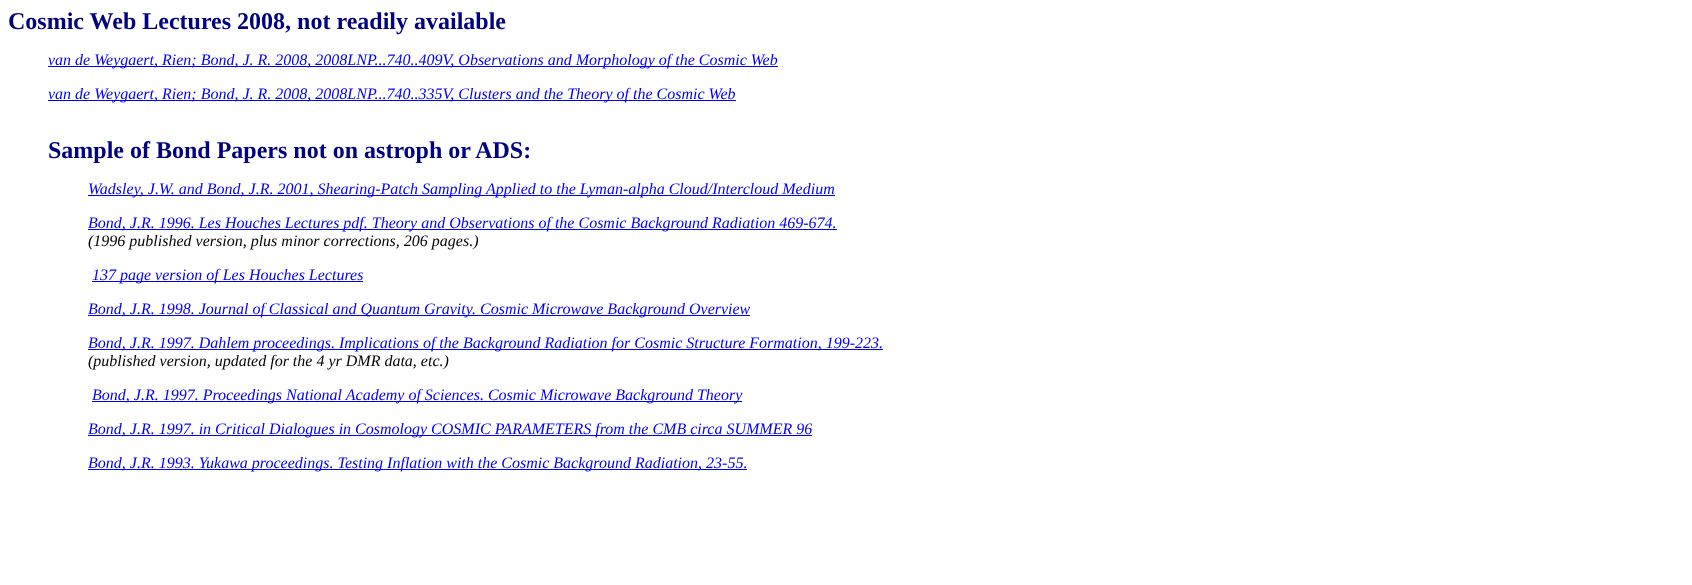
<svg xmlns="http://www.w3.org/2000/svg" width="1692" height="585">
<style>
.a{font:bold 24px Liberation Serif;fill:#000080}
.b{font:italic 16px Liberation Serif;fill:#00e}
.c{font:italic 16px Liberation Serif;fill:#000}
</style>
<rect width="100%" height="100%" fill="#fff"/>
<path fill="#00e" d="M48 66h730v1H48z"/>
<path fill="#00e" d="M48 100h688v1H48z"/>
<path fill="#00e" d="M88 195h747v1H88z"/>
<path fill="#00e" d="M88 229h749v1H88z"/>
<path fill="#00e" d="M92 281h271v1H92z"/>
<path fill="#00e" d="M88 315h662v1H88z"/>
<path fill="#00e" d="M88 349h795v1H88z"/>
<path fill="#00e" d="M92 401h650v1H92z"/>
<path fill="#00e" d="M88 435h724v1H88z"/>
<path fill="#00e" d="M88 469h659v1H88z"/>
<text class="a" x="8" y="29">Cosmic Web Lectures 2008, not readily available</text>
<text class="b" x="48" y="65">van de Weygaert, Rien; Bond, J. R. 2008, 2008LNP...740..409V, Observations and Morphology of the Cosmic Web</text>
<text class="b" x="48" y="99">van de Weygaert, Rien; Bond, J. R. 2008, 2008LNP...740..335V, Clusters and the Theory of the Cosmic Web</text>
<text class="a" x="48" y="158">Sample of Bond Papers not on astroph or ADS:</text>
<text class="b" x="88" y="194">Wadsley, J.W. and Bond, J.R. 2001, Shearing-Patch Sampling Applied to the Lyman-alpha Cloud/Intercloud Medium</text>
<text class="b" x="88" y="228">Bond, J.R. 1996. Les Houches Lectures pdf. Theory and Observations of the Cosmic Background Radiation 469-674.</text>
<text class="c" x="88" y="246">(1996 published version, plus minor corrections, 206 pages.)</text>
<text class="b" x="92" y="280">137 page version of Les Houches Lectures</text>
<text class="b" x="88" y="314">Bond, J.R. 1998. Journal of Classical and Quantum Gravity. Cosmic Microwave Background Overview</text>
<text class="b" x="88" y="348">Bond, J.R. 1997. Dahlem proceedings. Implications of the Background Radiation for Cosmic Structure Formation, 199-223.</text>
<text class="c" x="88" y="366">(published version, updated for the 4 yr DMR data, etc.)</text>
<text class="b" x="92" y="400">Bond, J.R. 1997. Proceedings National Academy of Sciences. Cosmic Microwave Background Theory</text>
<text class="b" x="88" y="434">Bond, J.R. 1997. in Critical Dialogues in Cosmology COSMIC PARAMETERS from the CMB circa SUMMER 96</text>
<text class="b" x="88" y="468">Bond, J.R. 1993. Yukawa proceedings. Testing Inflation with the Cosmic Background Radiation, 23-55.</text>
</svg>
